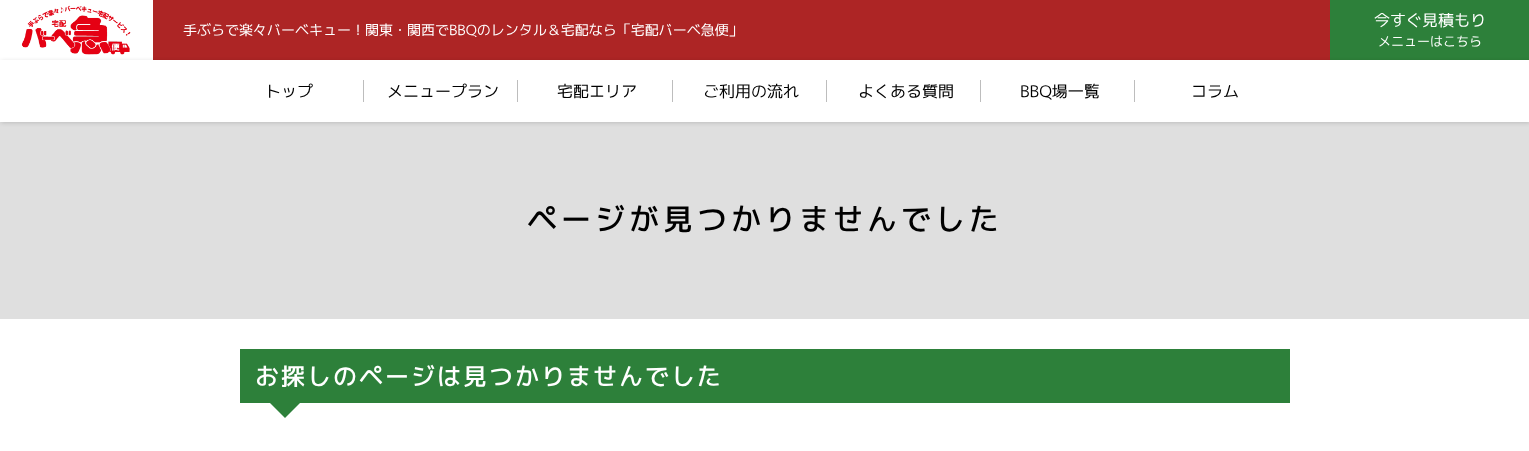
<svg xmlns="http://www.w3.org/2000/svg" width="1529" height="451">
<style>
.a{font:14px 'M PLUS 1p';fill:#fff}
.b{font:16px 'M PLUS 1p';fill:#fff}
.c{font:13px 'M PLUS 1p';fill:#fff}
.d{font:16px 'M PLUS 1p';fill:#000}
.e{font:500 30px 'M PLUS 1p';letter-spacing:4px;fill:#000}
.f{font:500 24px 'M PLUS 1p';letter-spacing:2px;fill:#fff}
</style>
<rect width="100%" height="100%" fill="#dfdfdf"/>
<path fill="#fff" d="M0 0h153v60H0z"/>
<image href="1.png" x="21" y="5" width="110" height="50"/>
<path fill="#ad2525" d="M153 0h1177v60H153z"/>
<path fill="#2d803a" d="M1330 0h199v60H1330z"/>
<path fill="#00000026" filter="blur(2px)" d="M1 61h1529v62H1z"/>
<path fill="#fff" d="M0 60h1529v62H0z"/>
<path fill="#bdbdbd" d="M363 80h1v22H363z"/>
<path fill="#bdbdbd" d="M517 80h1v22H517z"/>
<path fill="#bdbdbd" d="M672 80h1v22H672z"/>
<path fill="#bdbdbd" d="M826 80h1v22H826z"/>
<path fill="#bdbdbd" d="M980 80h1v22H980z"/>
<path fill="#bdbdbd" d="M1134 80h1v22H1134z"/>
<path fill="#fff" d="M0 319h1529v132H0z"/>
<path fill="#2d803a" d="M240 349h1050v54H240z"/>
<path fill="#2d803a" d="M270 403h30l-15 15z"/>
<text class="a" x="183" y="35">手ぶらで楽々バーベキュー！関東・関西でBBQのレンタル＆宅配なら「宅配バーベ急便」</text>
<text class="b" x="1374" y="26">今すぐ見積もり</text>
<text class="c" x="1378" y="46">メニューはこちら</text>
<text class="d" x="265" y="97">トップ</text>
<text class="d" x="387" y="97">メニュープラン</text>
<text class="d" x="557" y="97">宅配エリア</text>
<text class="d" x="703" y="97">ご利用の流れ</text>
<text class="d" x="858" y="97">よくある質問</text>
<text class="d" x="1020" y="97">BBQ場一覧</text>
<text class="d" x="1191" y="97">コラム</text>
<text class="e" x="527" y="230">ページが見つかりませんでした</text>
<text class="f" x="255" y="385">お探しのページは見つかりませんでした</text>
</svg>
